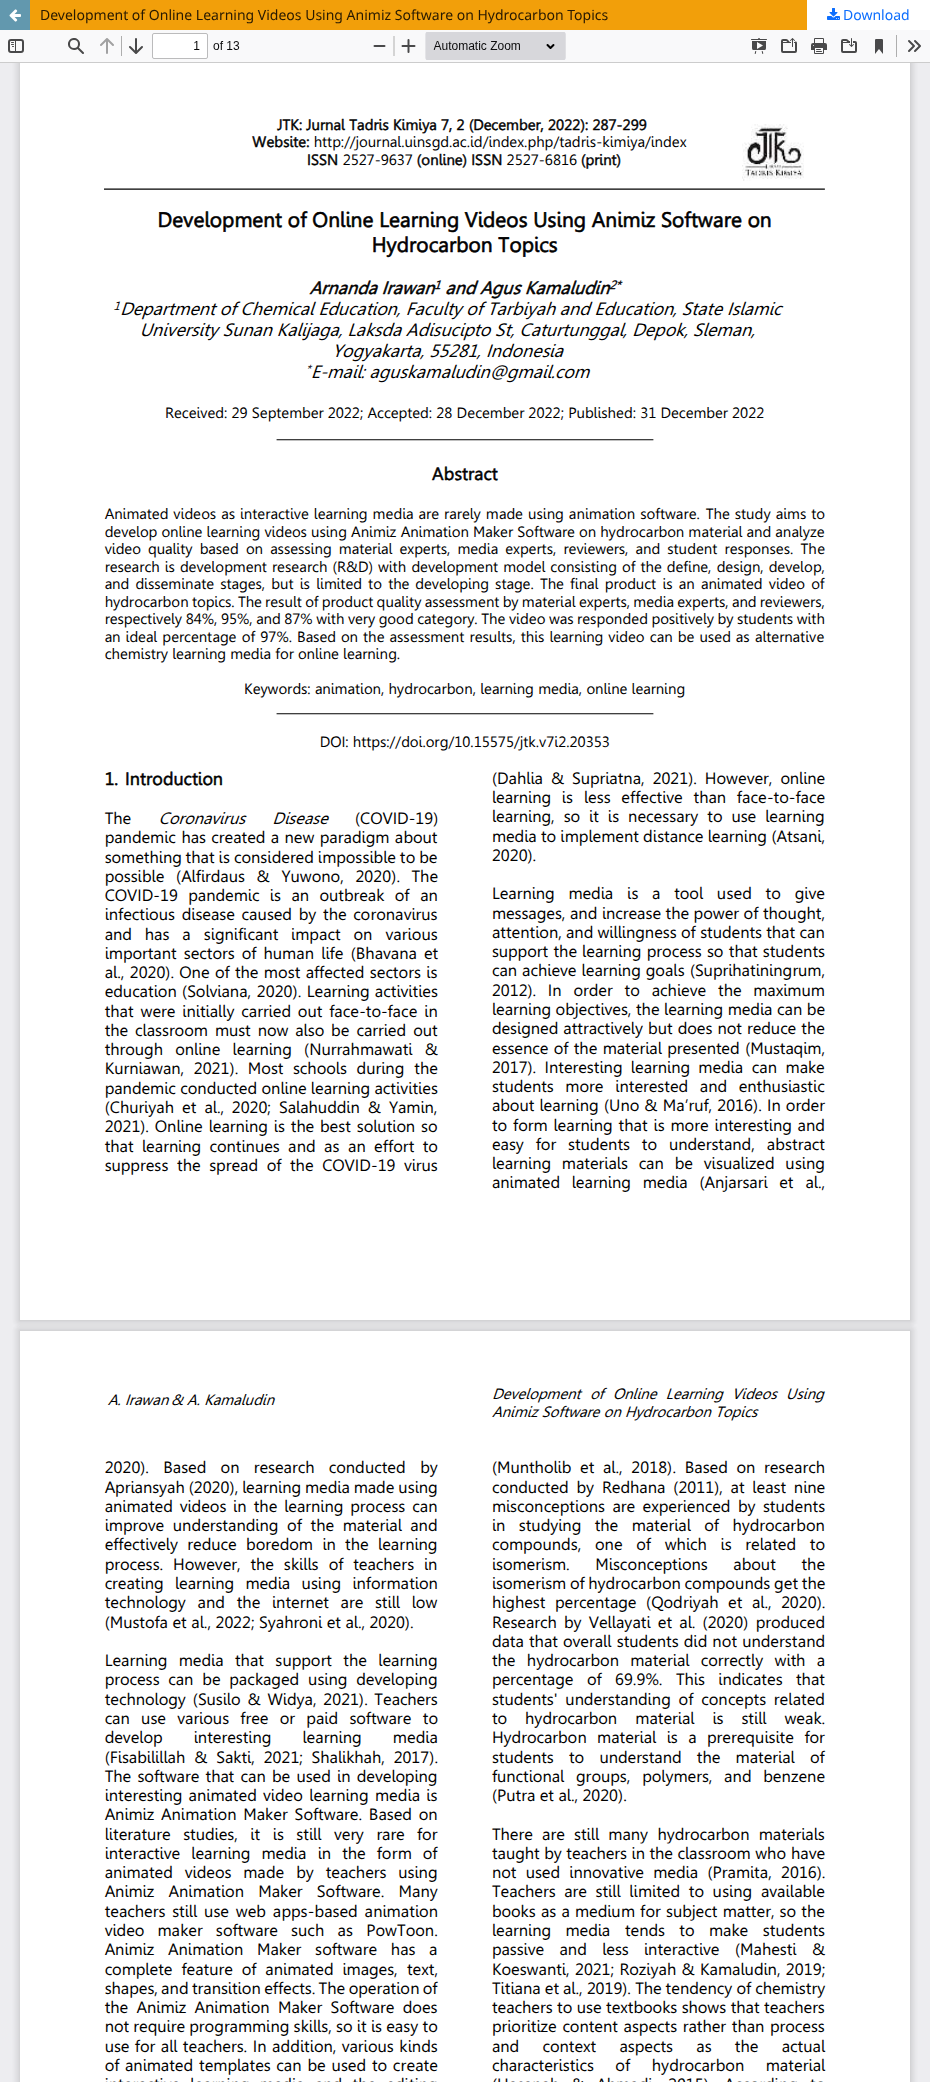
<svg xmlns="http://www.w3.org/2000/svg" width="930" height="2082">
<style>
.a{font:14px Noto Sans;fill:#271902}
.b{font:14px Noto Sans;fill:#0d6efd}
</style>
<rect width="100%" height="100%" fill="#fff"/>
<path fill="#f29f0a" d="M30 0h777v30H30z"/>
<path fill="#6298ae" d="M0 0h30v30H0z"/>
<image href="1.png" x="9" y="9" width="12" height="13"/>
<image href="2.png" x="827" y="8" width="13" height="12"/>
<image href="3.png" x="0" y="30" width="930" height="2052"/>
<text class="a" x="40" y="20">Development of Online Learning Videos Using Animiz Software on Hydrocarbon Topics</text>
<text class="b" x="843" y="20">Download</text>
</svg>
